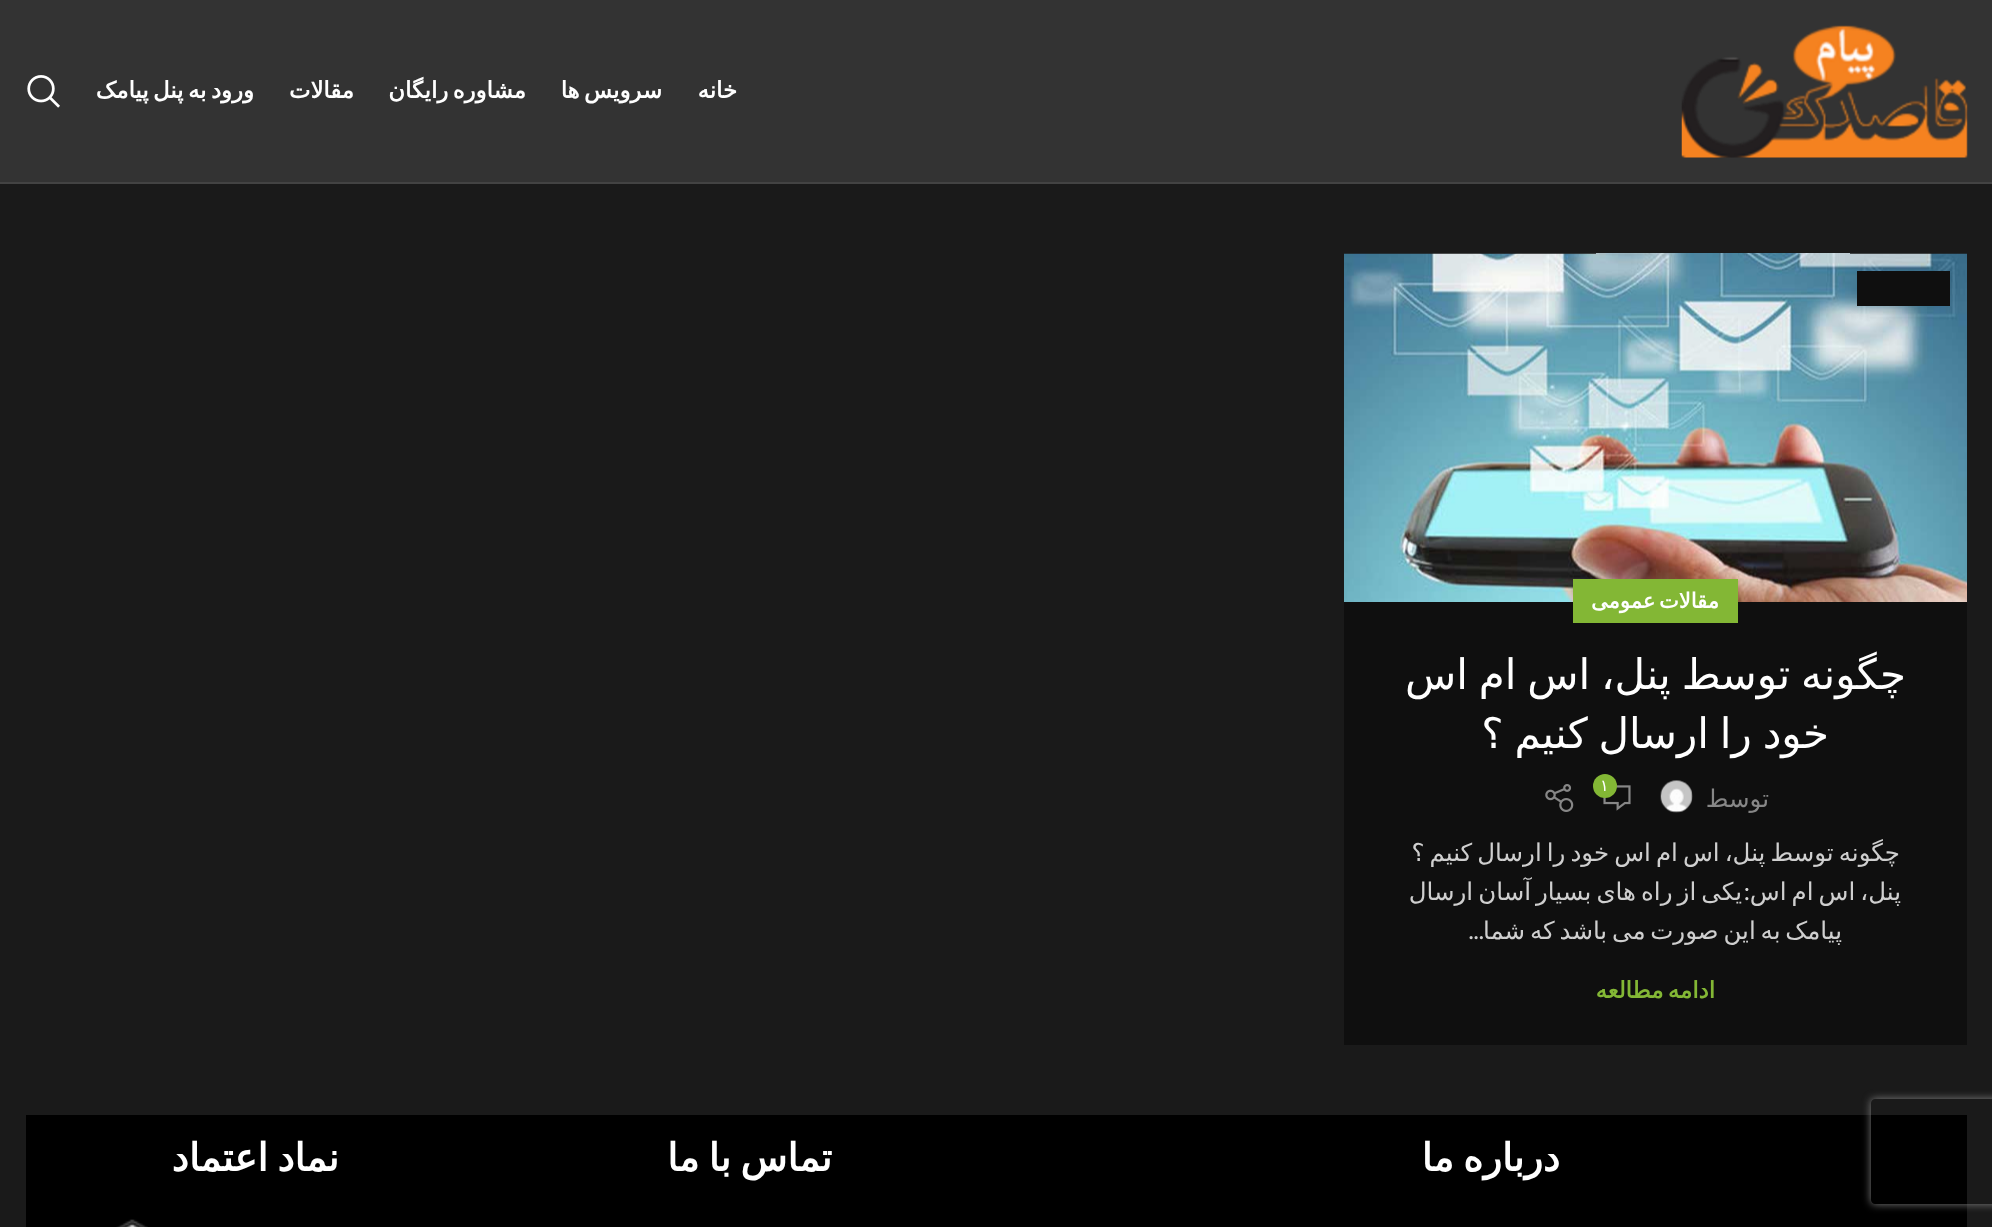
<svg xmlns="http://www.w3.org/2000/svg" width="1992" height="1227">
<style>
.a{font:bold 22.75px DejaVu Sans;direction:rtl;fill:#fff}
.b{font:bold 21px DejaVu Sans;direction:rtl;fill:#fff}
.c{font:42px DejaVu Sans;direction:rtl;fill:#fff}
.d{font:16px DejaVu Sans;fill:#fff}
.e{font:24.5px DejaVu Sans;direction:rtl;fill:#878787}
.f{font:24.5px DejaVu Sans;direction:rtl;fill:#cfcfcf}
.g{font:24.5px Lato;direction:rtl;fill:#d7d7d7}
.h{font:24.5px Lato;direction:rtl;fill:#cfcfcf}
.i{font:bold 22.75px DejaVu Sans;direction:rtl;fill:#83b735}
.j{font:bold 38.5px DejaVu Sans;direction:rtl;fill:#fff}
</style>
<defs>
<clipPath id="clip1"><path d="M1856 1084h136v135h-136zm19 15h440c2 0 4 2 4 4v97c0 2-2 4-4 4h-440c-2 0-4-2-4-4v-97c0-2 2-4 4-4z" clip-rule="evenodd"/></clipPath>
</defs>
<rect width="100%" height="100%" fill="#1a1a1a"/>
<path fill="#000" d="M26 1115h1941v112H26z"/>
<g clip-path="url(#clip1)">
<rect fill="#808080" filter="blur(4.5px)" x="1871" y="1099" width="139" height="105" rx="4"/>
</g>
<path fill="#333" d="M0 0h1992v182H0z"/>
<path fill="#434343" d="M0 182h1992v2H0z"/>
<image href="1.png" x="1681" y="25" width="287" height="133"/>
<image href="2.png" x="27" y="75" width="33" height="33"/>
<image href="3.png" x="1344" y="253" width="623" height="349"/>
<path fill="#0000001a" filter="blur(8px)" d="M1857 271h93v35H1857z"/>
<path fill="#0f0f0f" d="M1857 271h93v35H1857z"/>
<path fill="#0f0f0f" d="M1344 602h623v443H1344z"/>
<path fill="#83b735" d="M1573 579h165v44H1573z"/>
<image href="4.png" x="1603" y="785" width="28" height="26"/>
<circle fill="#83b735" cx="1605" cy="786" r="12"/>
<image href="5.png" x="1660" y="780" width="33" height="33"/>
<image href="6.png" x="1545" y="784" width="29" height="28"/>
<image href="7.png" x="116" y="1219" width="32" height="8"/>
<text class="a" x="737" y="98">خانه</text>
<text class="a" x="662" y="98" word-spacing="-2.75">سرویس ها</text>
<text class="a" x="526" y="98" word-spacing="-2.75">مشاوره رایگان</text>
<text class="a" x="354" y="98">مقالات</text>
<text class="a" x="254" y="98" word-spacing="-2.75">ورود به پنل پیامک</text>
<text class="b" x="1719" y="608" word-spacing="-3">مقالات عمومی</text>
<text class="c" x="1906" y="689" word-spacing="-2.5">چگونه توسط پنل، اس ام اس</text>
<text class="c" x="1829" y="748" word-spacing="-2.5">خود را ارسال کنیم ؟</text>
<text class="d" x="1600" y="791">۱</text>
<text class="e" x="1769" y="807">توسط</text>
<text class="f" x="1900" y="861" word-spacing="-2.75">چگونه توسط پنل، اس ام اس خود را ارسال کنیم ؟</text>
<text class="f" x="1742" y="900" word-spacing="-2.75">یکی از راه های بسیار آسان ارسال</text>
<text class="f" x="1901" y="900" word-spacing="-2.75">پنل، اس ام اس</text>
<text class="g" x="1750" y="900">:</text>
<text class="f" x="1842" y="939" word-spacing="-3">پیامک به این صورت می باشد که شما</text>
<text class="h" x="1484" y="939">...</text>
<text class="i" x="1715" y="998" word-spacing="-2.75">ادامه مطالعه</text>
<text class="j" x="1560" y="1171" word-spacing="-3">درباره ما</text>
<text class="j" x="832" y="1171" word-spacing="-3">تماس با ما</text>
<text class="j" x="339" y="1171" word-spacing="-3">نماد اعتماد</text>
</svg>
